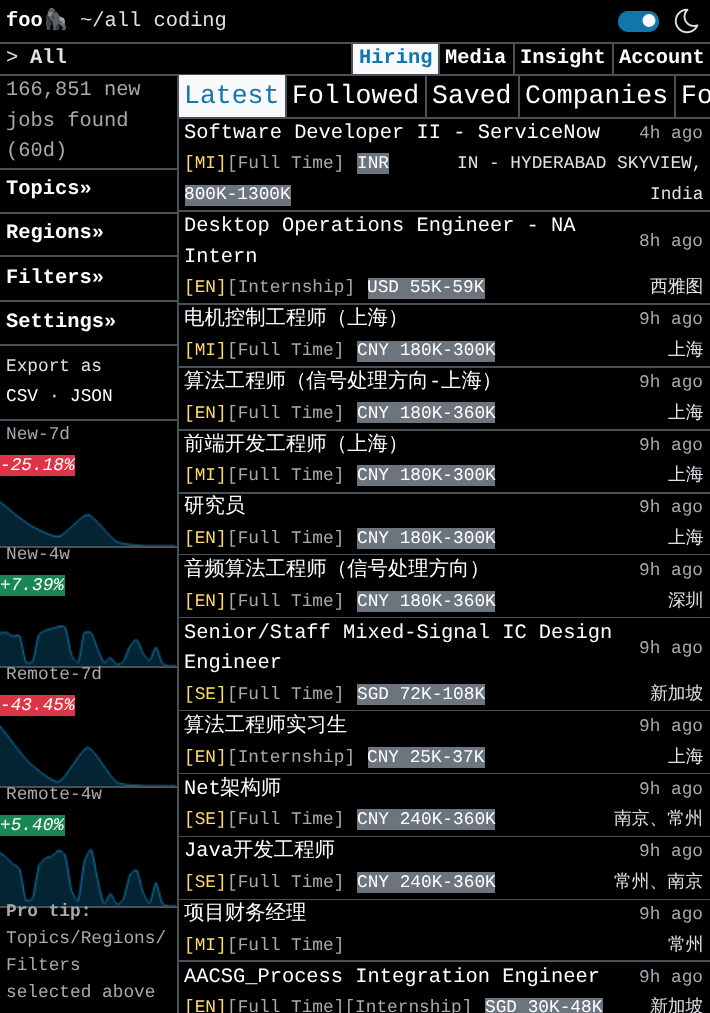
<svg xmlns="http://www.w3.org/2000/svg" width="710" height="1013">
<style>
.a{font:bold 20.4px Liberation Mono;fill:#fff}
.b{font:bold 20.4px Noto Color Emoji;fill:#fff}
.c{font:20.4px Liberation Mono;fill:#dee2e6}
.d{font:bold 20.4px Liberation Mono;fill:#dee2e6}
.e{font:bold 20.4px Liberation Mono;fill:#1077aa}
.f{font:20.4px Liberation Mono;fill:#a7aaad}
.g{font:17.8px Liberation Mono;fill:#dee2e6}
.h{font:17.8px Liberation Mono;fill:#fff}
.i{font:17.8px Liberation Mono;fill:#a7aaad}
.j{font:italic 17.8px Liberation Mono;fill:#fff}
.k{font:bold 17.8px Liberation Mono;fill:#a7aaad}
.l{font:26.5px Liberation Mono;fill:#1077aa}
.m{font:26.5px Liberation Mono;fill:#fff}
.n{font:20.4px Liberation Mono;fill:#fff}
.o{font:17.8px Liberation Mono;fill:#ffda6a}
.p{font:500 17.8px WenQuanYi Zen Hei;fill:#dee2e6}
.q{font:500 20.4px WenQuanYi Zen Hei;fill:#fff}
</style>
<rect width="100%" height="100%" fill="#000"/>
<path fill="#495057" d="M0 42h710v2H0z"/>
<rect fill="#1077aa" x="618" y="11" width="41" height="21" rx="10.5"/>
<circle fill="#fff" cx="649" cy="20.5" r="6.5"/>
<rect fill="none" stroke="#1077aa" stroke-width="2" x="619" y="12" width="39" height="19" rx="9.5"/>
<image href="1.png" x="674" y="8" width="25" height="26"/>
<path fill="#495057" d="M0 74h710v2H0z"/>
<path fill="#f8f9fa" d="M353 44h85v30H353z"/>
<path fill="#495057" d="M351 44h2v30H351z"/>
<path fill="#495057" d="M438 44h2v30H438z"/>
<path fill="#495057" d="M513 44h2v30H513z"/>
<path fill="#495057" d="M612 44h2v30H612z"/>
<path fill="#495057" d="M177 75h2v938H177z"/>
<path fill="#495057" d="M0 168h177v2H0z"/>
<path fill="#495057" d="M0 212h177v2H0z"/>
<path fill="#495057" d="M0 255h177v2H0z"/>
<path fill="#495057" d="M0 300h177v2H0z"/>
<path fill="#495057" d="M0 344h177v2H0z"/>
<path fill="#495057" d="M0 419h177v2H0z"/>
<path fill="#dc3545" d="M0 455h75v21H0z"/>
<path fill="#495057" d="M0 546h177v2H0z"/>
<image href="2.png" x="0" y="500" width="176" height="46"/>
<path fill="#198754" d="M0 575h65v21H0z"/>
<path fill="#495057" d="M0 666h177v2H0z"/>
<image href="3.png" x="0" y="625" width="176" height="41"/>
<path fill="#dc3545" d="M0 695h75v21H0z"/>
<path fill="#495057" d="M0 786h177v2H0z"/>
<image href="4.png" x="0" y="725" width="176" height="61"/>
<path fill="#198754" d="M0 815h65v21H0z"/>
<path fill="#495057" d="M0 906h177v2H0z"/>
<image href="5.png" x="0" y="847" width="176" height="59"/>
<path fill="#495057" d="M179 117h531v2H179z"/>
<path fill="#f8f9fa" d="M179 75h106v42H179z"/>
<path fill="#495057" d="M285 75h2v42H285z"/>
<path fill="#495057" d="M425 75h2v42H425z"/>
<path fill="#495057" d="M518 75h2v42H518z"/>
<path fill="#495057" d="M674 75h2v42H674z"/>
<path fill="#495057" d="M179 210h531v2H179z"/>
<path fill="#6c757d" d="M357 153h32v21H357z"/>
<path fill="#6c757d" d="M185 185h106v21H185z"/>
<path fill="#495057" d="M179 303h531v2H179z"/>
<path fill="#6c757d" d="M368 278h117v21H368z"/>
<path fill="#495057" d="M179 366h531v2H179z"/>
<path fill="#6c757d" d="M357 341h138v21H357z"/>
<path fill="#495057" d="M179 429h531v2H179z"/>
<path fill="#6c757d" d="M357 402h138v21H357z"/>
<path fill="#495057" d="M179 492h531v2H179z"/>
<path fill="#6c757d" d="M357 465h138v21H357z"/>
<path fill="#495057" d="M179 554h531v1H179z"/>
<path fill="#6c757d" d="M357 528h138v21H357z"/>
<path fill="#495057" d="M179 617h531v1H179z"/>
<path fill="#6c757d" d="M357 591h138v21H357z"/>
<path fill="#495057" d="M179 710h531v1H179z"/>
<path fill="#6c757d" d="M357 684h128v21H357z"/>
<path fill="#495057" d="M179 773h531v1H179z"/>
<path fill="#6c757d" d="M368 747h117v21H368z"/>
<path fill="#495057" d="M179 836h531v1H179z"/>
<path fill="#6c757d" d="M357 809h138v21H357z"/>
<path fill="#495057" d="M179 899h531v1H179z"/>
<path fill="#6c757d" d="M357 872h138v21H357z"/>
<path fill="#495057" d="M179 960h531v2H179z"/>
<path fill="#6c757d" d="M485 998h118v15H485z"/>
<text class="a" x="6" y="26">foo</text>
<text class="b" x="43" y="26">🦍</text>
<text class="c" x="80" y="26">~/all coding</text>
<text class="c" x="6" y="63">&gt;</text>
<text class="d" x="30" y="63">All</text>
<text class="e" x="359" y="63">Hiring</text>
<text class="a" x="445" y="63">Media</text>
<text class="a" x="520" y="63">Insight</text>
<text class="a" x="619" y="63">Account</text>
<text class="f" x="6" y="95">166,851 new</text>
<text class="f" x="6" y="126">jobs found</text>
<text class="f" x="6" y="156">(60d)</text>
<text class="a" x="6" y="194">Topics»</text>
<text class="a" x="6" y="238">Regions»</text>
<text class="a" x="6" y="283">Filters»</text>
<text class="a" x="6" y="327">Settings»</text>
<text class="g" x="6" y="371">Export as</text>
<text class="h" x="6" y="401">CSV</text>
<text class="g" x="49" y="401">·</text>
<text class="h" x="70" y="401">JSON</text>
<text class="i" x="6" y="439">New-7d</text>
<text class="j" x="0" y="470">-25.18%</text>
<text class="i" x="6" y="559">New-4w</text>
<text class="j" x="0" y="590">+7.39%</text>
<text class="i" x="6" y="679">Remote-7d</text>
<text class="j" x="0" y="710">-43.45%</text>
<text class="i" x="6" y="799">Remote-4w</text>
<text class="j" x="0" y="830">+5.40%</text>
<text class="k" x="6" y="916">Pro tip:</text>
<text class="i" x="6" y="943">Topics/Regions/</text>
<text class="i" x="6" y="970">Filters</text>
<text class="i" x="6" y="997">selected above</text>
<text class="l" x="184" y="103">Latest</text>
<text class="m" x="292" y="103">Followed</text>
<text class="m" x="432" y="103">Saved</text>
<text class="m" x="525" y="103">Companies</text>
<text class="m" x="681" y="103">Fo</text>
<text class="n" x="184" y="138">Software Developer II - ServiceNow</text>
<text class="i" x="639" y="138">4h ago</text>
<text class="o" x="184" y="168">[MI]</text>
<text class="i" x="227" y="168">[Full Time]</text>
<text class="h" x="357" y="168">INR</text>
<text class="h" x="184" y="199">800K-1300K</text>
<text class="g" x="457" y="168">IN - HYDERABAD SKYVIEW,</text>
<text class="g" x="650" y="199">India</text>
<text class="n" x="184" y="231">Desktop Operations Engineer - NA</text>
<text class="n" x="184" y="262">Intern</text>
<text class="i" x="639" y="246">8h ago</text>
<text class="o" x="184" y="292">[EN]</text>
<text class="i" x="227" y="292">[Internship]</text>
<text class="h" x="367" y="292">USD 55K-59K</text>
<text class="p" x="650" y="292">西雅图</text>
<text class="q" x="184" y="324">电机控制工程师（上海）</text>
<text class="i" x="639" y="324">9h ago</text>
<text class="o" x="184" y="355">[MI]</text>
<text class="i" x="227" y="355">[Full Time]</text>
<text class="h" x="357" y="355">CNY 180K-300K</text>
<text class="p" x="668" y="355">上海</text>
<text class="q" x="184" y="387">算法工程师（信号处理方向</text>
<text class="n" x="429" y="387">-</text>
<text class="q" x="441" y="387">上海）</text>
<text class="i" x="639" y="387">9h ago</text>
<text class="o" x="184" y="418">[EN]</text>
<text class="i" x="227" y="418">[Full Time]</text>
<text class="h" x="357" y="418">CNY 180K-360K</text>
<text class="p" x="668" y="418">上海</text>
<text class="q" x="184" y="450">前端开发工程师（上海）</text>
<text class="i" x="639" y="450">9h ago</text>
<text class="o" x="184" y="480">[MI]</text>
<text class="i" x="227" y="480">[Full Time]</text>
<text class="h" x="357" y="480">CNY 180K-300K</text>
<text class="p" x="668" y="480">上海</text>
<text class="q" x="184" y="512">研究员</text>
<text class="i" x="639" y="512">9h ago</text>
<text class="o" x="184" y="543">[EN]</text>
<text class="i" x="227" y="543">[Full Time]</text>
<text class="h" x="357" y="543">CNY 180K-300K</text>
<text class="p" x="668" y="543">上海</text>
<text class="q" x="184" y="575">音频算法工程师（信号处理方向）</text>
<text class="i" x="639" y="575">9h ago</text>
<text class="o" x="184" y="606">[EN]</text>
<text class="i" x="227" y="606">[Full Time]</text>
<text class="h" x="357" y="606">CNY 180K-360K</text>
<text class="p" x="668" y="606">深圳</text>
<text class="n" x="184" y="638">Senior/Staff Mixed-Signal IC Design</text>
<text class="n" x="184" y="668">Engineer</text>
<text class="i" x="639" y="653">9h ago</text>
<text class="o" x="184" y="699">[SE]</text>
<text class="i" x="227" y="699">[Full Time]</text>
<text class="h" x="357" y="699">SGD 72K-108K</text>
<text class="p" x="650" y="699">新加坡</text>
<text class="q" x="184" y="731">算法工程师实习生</text>
<text class="i" x="639" y="731">9h ago</text>
<text class="o" x="184" y="762">[EN]</text>
<text class="i" x="227" y="762">[Internship]</text>
<text class="h" x="367" y="762">CNY 25K-37K</text>
<text class="p" x="668" y="762">上海</text>
<text class="n" x="184" y="794">Net</text>
<text class="q" x="220" y="794">架构师</text>
<text class="i" x="639" y="794">9h ago</text>
<text class="o" x="184" y="824">[SE]</text>
<text class="i" x="227" y="824">[Full Time]</text>
<text class="h" x="357" y="824">CNY 240K-360K</text>
<text class="p" x="614" y="824">南京、常州</text>
<text class="n" x="184" y="856">Java</text>
<text class="q" x="233" y="856">开发工程师</text>
<text class="i" x="639" y="856">9h ago</text>
<text class="o" x="184" y="887">[SE]</text>
<text class="i" x="227" y="887">[Full Time]</text>
<text class="h" x="357" y="887">CNY 240K-360K</text>
<text class="p" x="614" y="887">常州、南京</text>
<text class="q" x="184" y="919">项目财务经理</text>
<text class="i" x="639" y="919">9h ago</text>
<text class="o" x="184" y="950">[MI]</text>
<text class="i" x="227" y="950">[Full Time]</text>
<text class="p" x="668" y="950">常州</text>
<text class="n" x="184" y="982">AACSG_Process Integration Engineer</text>
<text class="i" x="639" y="982">9h ago</text>
<text class="o" x="184" y="1012">[EN]</text>
<text class="i" x="227" y="1012">[Full Time][Internship]</text>
<text class="h" x="485" y="1012">SGD 30K-48K</text>
<text class="p" x="650" y="1012">新加坡</text>
</svg>
